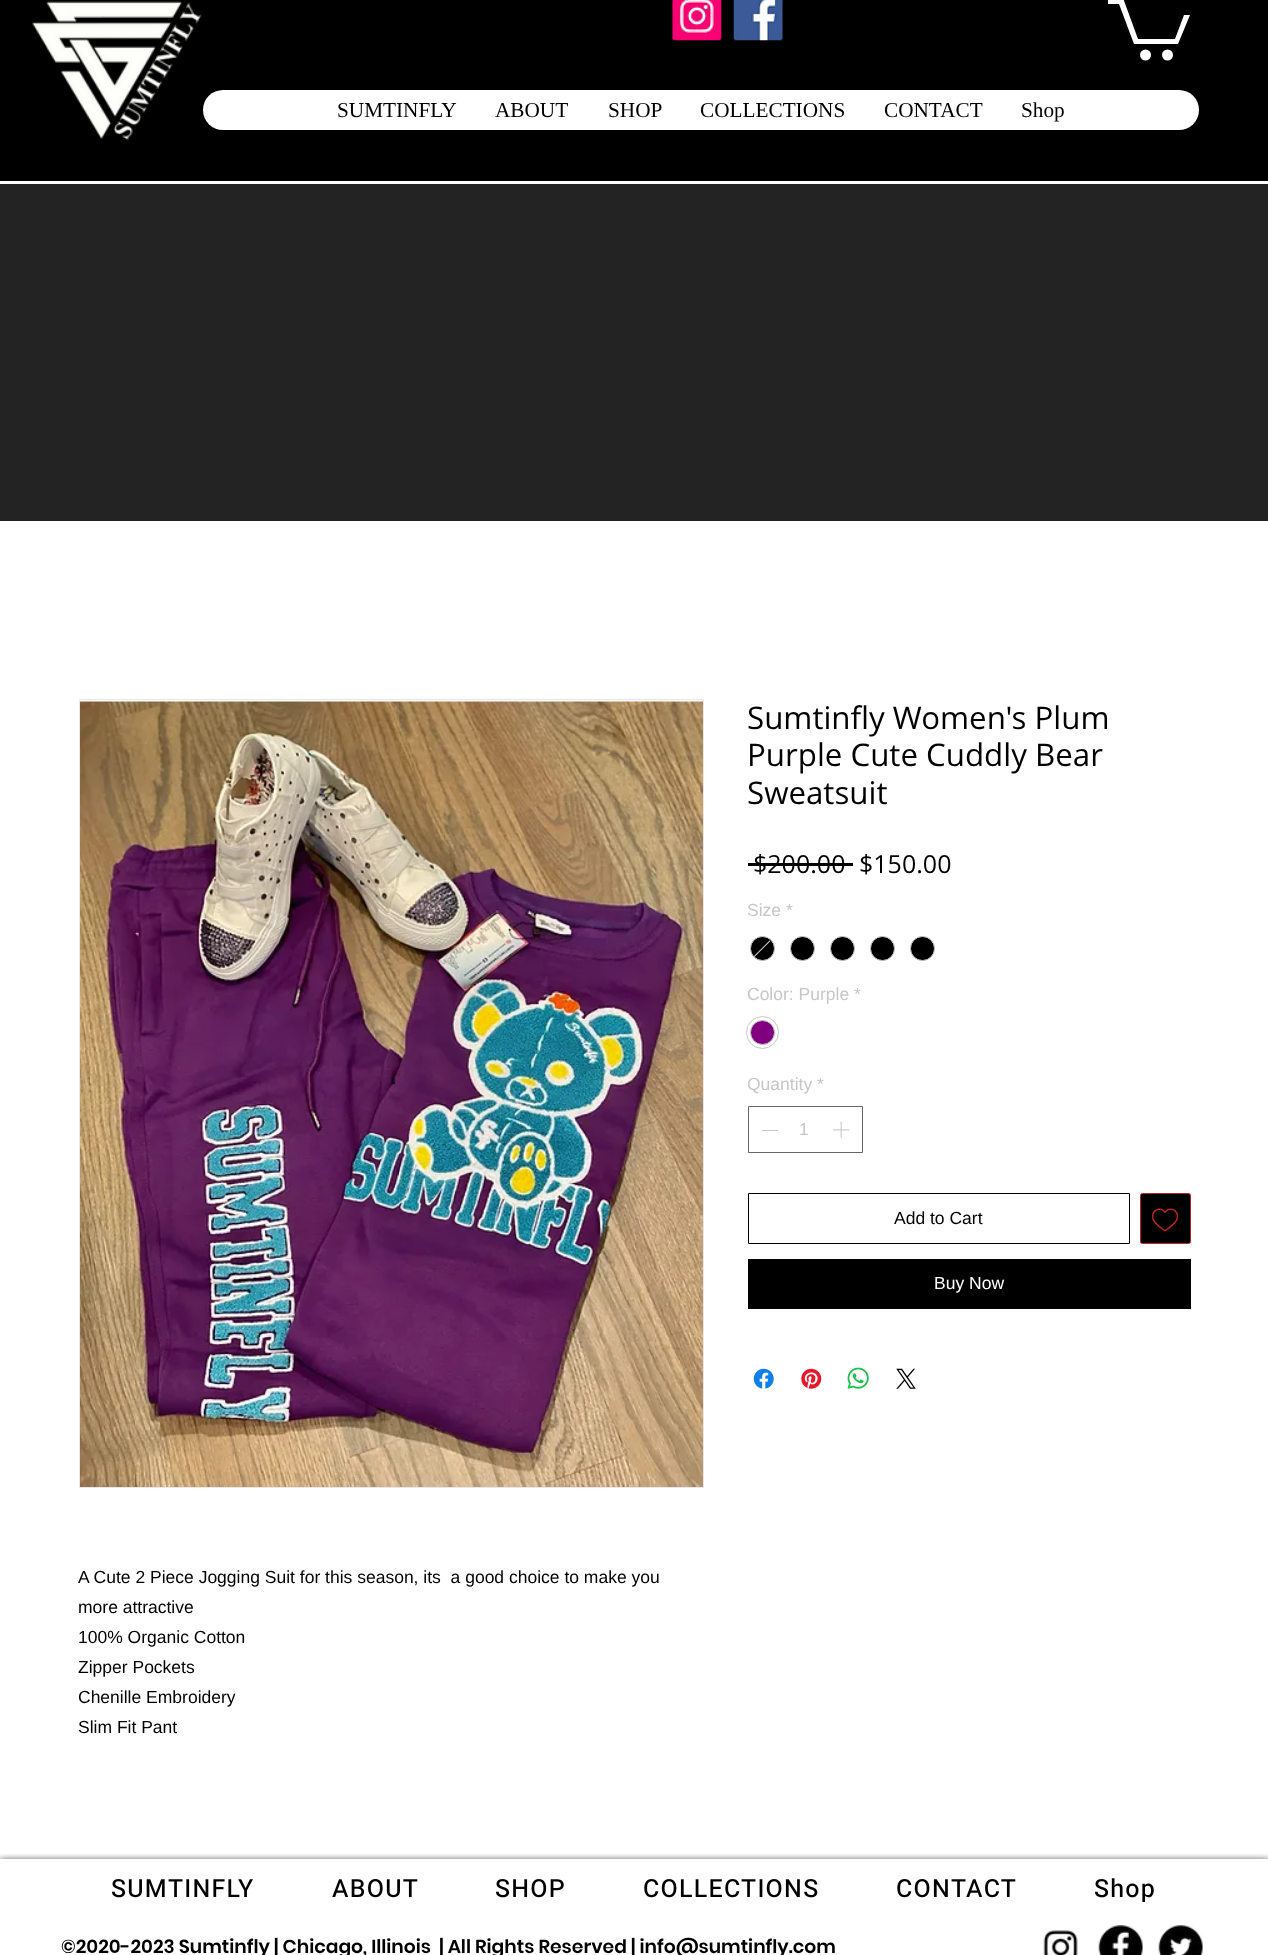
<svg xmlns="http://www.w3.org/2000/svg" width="1268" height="1955">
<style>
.a{font:21.25px Liberation Serif;fill:#000}
.b{font:31.25px Open Sans;fill:#000}
.c{font:25px Open Sans;fill:#000}
.d{font:17.5px Liberation Sans;fill:#c7c7c7}
.e{font:17.5px Liberation Sans;fill:#000}
.f{font:17.5px Liberation Sans;fill:#fff}
.g{font:500 25px Heebo;letter-spacing:1.25px;fill:#000}
.h{font:600 18.75px Poppins;fill:#000}
</style>
<defs>
<clipPath id="clip1"><path d="M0 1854h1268v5H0z"/></clipPath>
</defs>
<rect width="100%" height="100%" fill="#fff"/>
<path fill="#000" d="M0 0h1268v181H0z"/>
<image href="1.png" x="32" y="1" width="170" height="140"/>
<image href="2.png" x="672" y="0" width="50" height="41"/>
<image href="3.png" x="733" y="0" width="50" height="41"/>
<path fill="#fff" d="M1190 15l-12 29h-44l-15-40h-11v-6h15l15 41h37l9-24"/>
<circle fill="#fff" cx="1167.5" cy="55" r="5.5"/>
<circle fill="#fff" cx="1145.5" cy="55" r="5.5"/>
<rect fill="#fff" x="203" y="90" width="996" height="40" rx="20"/>
<path fill="#242323" d="M0 184h1268v337H0z"/>
<path fill="#000" d="M748 863h105v3H748z"/>
<circle fill="#000" stroke="#c9c9c9" cx="762.5" cy="948.5" r="12"/>
<path fill="#c9c9c9" d="M770.5 941l-16 16l-1-.5l16-16z"/>
<circle fill="#000" stroke="#c9c9c9" cx="802.5" cy="948.5" r="12"/>
<circle fill="#000" stroke="#c9c9c9" cx="842.5" cy="948.5" r="12"/>
<circle fill="#000" stroke="#c9c9c9" cx="882.5" cy="948.5" r="12"/>
<circle fill="#000" stroke="#c9c9c9" cx="922.5" cy="948.5" r="12"/>
<circle fill="none" stroke="#c7c7c7" cx="762.5" cy="1032.5" r="16"/>
<circle fill="#800080" stroke="#c9c9c9" cx="762.5" cy="1032.5" r="12"/>
<path fill="none" stroke="#666" d="M748.5 1106.5h114v46H748.5z"/>
<path fill="#c7c7c7" d="M762 1130h16v1H762z"/>
<image href="4.png" x="833" y="1121" width="17" height="18"/>
<path fill="none" stroke="#000" d="M748.5 1193.5h381v50H748.5z"/>
<rect fill="#000" stroke="#bb2423" x="1140.5" y="1193.5" width="50" height="50" rx="2"/>
<image href="5.png" x="1151" y="1208" width="28" height="24"/>
<path fill="#000" d="M748 1259h443v50H748z"/>
<image href="6.png" x="753" y="1368" width="21" height="21"/>
<image href="7.png" x="801" y="1368" width="21" height="21"/>
<image href="8.png" x="847" y="1367" width="22" height="22"/>
<image href="9.png" x="896" y="1368" width="20" height="21"/>
<path fill="none" stroke="#e8e6e6" d="M79.5 699.5h624v788H79.5z"/>
<image href="10.png" x="80" y="701" width="623" height="786"/>
<g clip-path="url(#clip1)">
<path fill="#00000099" filter="blur(3px)" d="M0 1859h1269v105H0z"/>
</g>
<image href="11.png" x="1043" y="1930" width="35" height="25"/>
<image href="12.png" x="1098" y="1925" width="45" height="30"/>
<image href="13.png" x="1158" y="1925" width="45" height="30"/>
<text class="a" x="337" y="117">SUMTINFLY</text>
<text class="a" x="495" y="117">ABOUT</text>
<text class="a" x="608" y="117">SHOP</text>
<text class="a" x="700" y="117">COLLECTIONS</text>
<text class="a" x="884" y="117">CONTACT</text>
<text class="a" x="1021" y="117">Shop</text>
<text class="b" x="747" y="729">Sumtinfly Women's Plum</text>
<text class="b" x="747" y="766">Purple Cute Cuddly Bear</text>
<text class="b" x="747" y="804">Sweatsuit</text>
<text class="c" x="753" y="873">$200.00</text>
<text class="c" x="859" y="873">$150.00</text>
<text class="d" x="747" y="916">Size *</text>
<text class="d" x="747" y="1000">Color: Purple *</text>
<text class="d" x="747" y="1090">Quantity *</text>
<text class="d" x="799" y="1135">1</text>
<text class="e" x="894" y="1224">Add to Cart</text>
<text class="f" x="934" y="1289">Buy Now</text>
<text class="e" xml:space="preserve" x="78" y="1583">A Cute 2 Piece Jogging Suit for this season, its  a good choice to make you</text>
<text class="e" x="78" y="1613">more attractive</text>
<text class="e" x="78" y="1643">100% Organic Cotton</text>
<text class="e" x="78" y="1673">Zipper Pockets</text>
<text class="e" x="78" y="1703">Chenille Embroidery</text>
<text class="e" x="78" y="1733">Slim Fit Pant</text>
<text class="g" x="111" y="1897">SUMTINFLY</text>
<text class="g" x="332" y="1897">ABOUT</text>
<text class="g" x="495" y="1897">SHOP</text>
<text class="g" x="643" y="1897">COLLECTIONS</text>
<text class="g" x="896" y="1897">CONTACT</text>
<text class="g" x="1094" y="1897">Shop</text>
<text class="h" xml:space="preserve" x="61" y="1953">©2020-2023 Sumtinfly | Chicago, Illinois  | All Rights Reserved | info@sumtinfly.com</text>
</svg>
